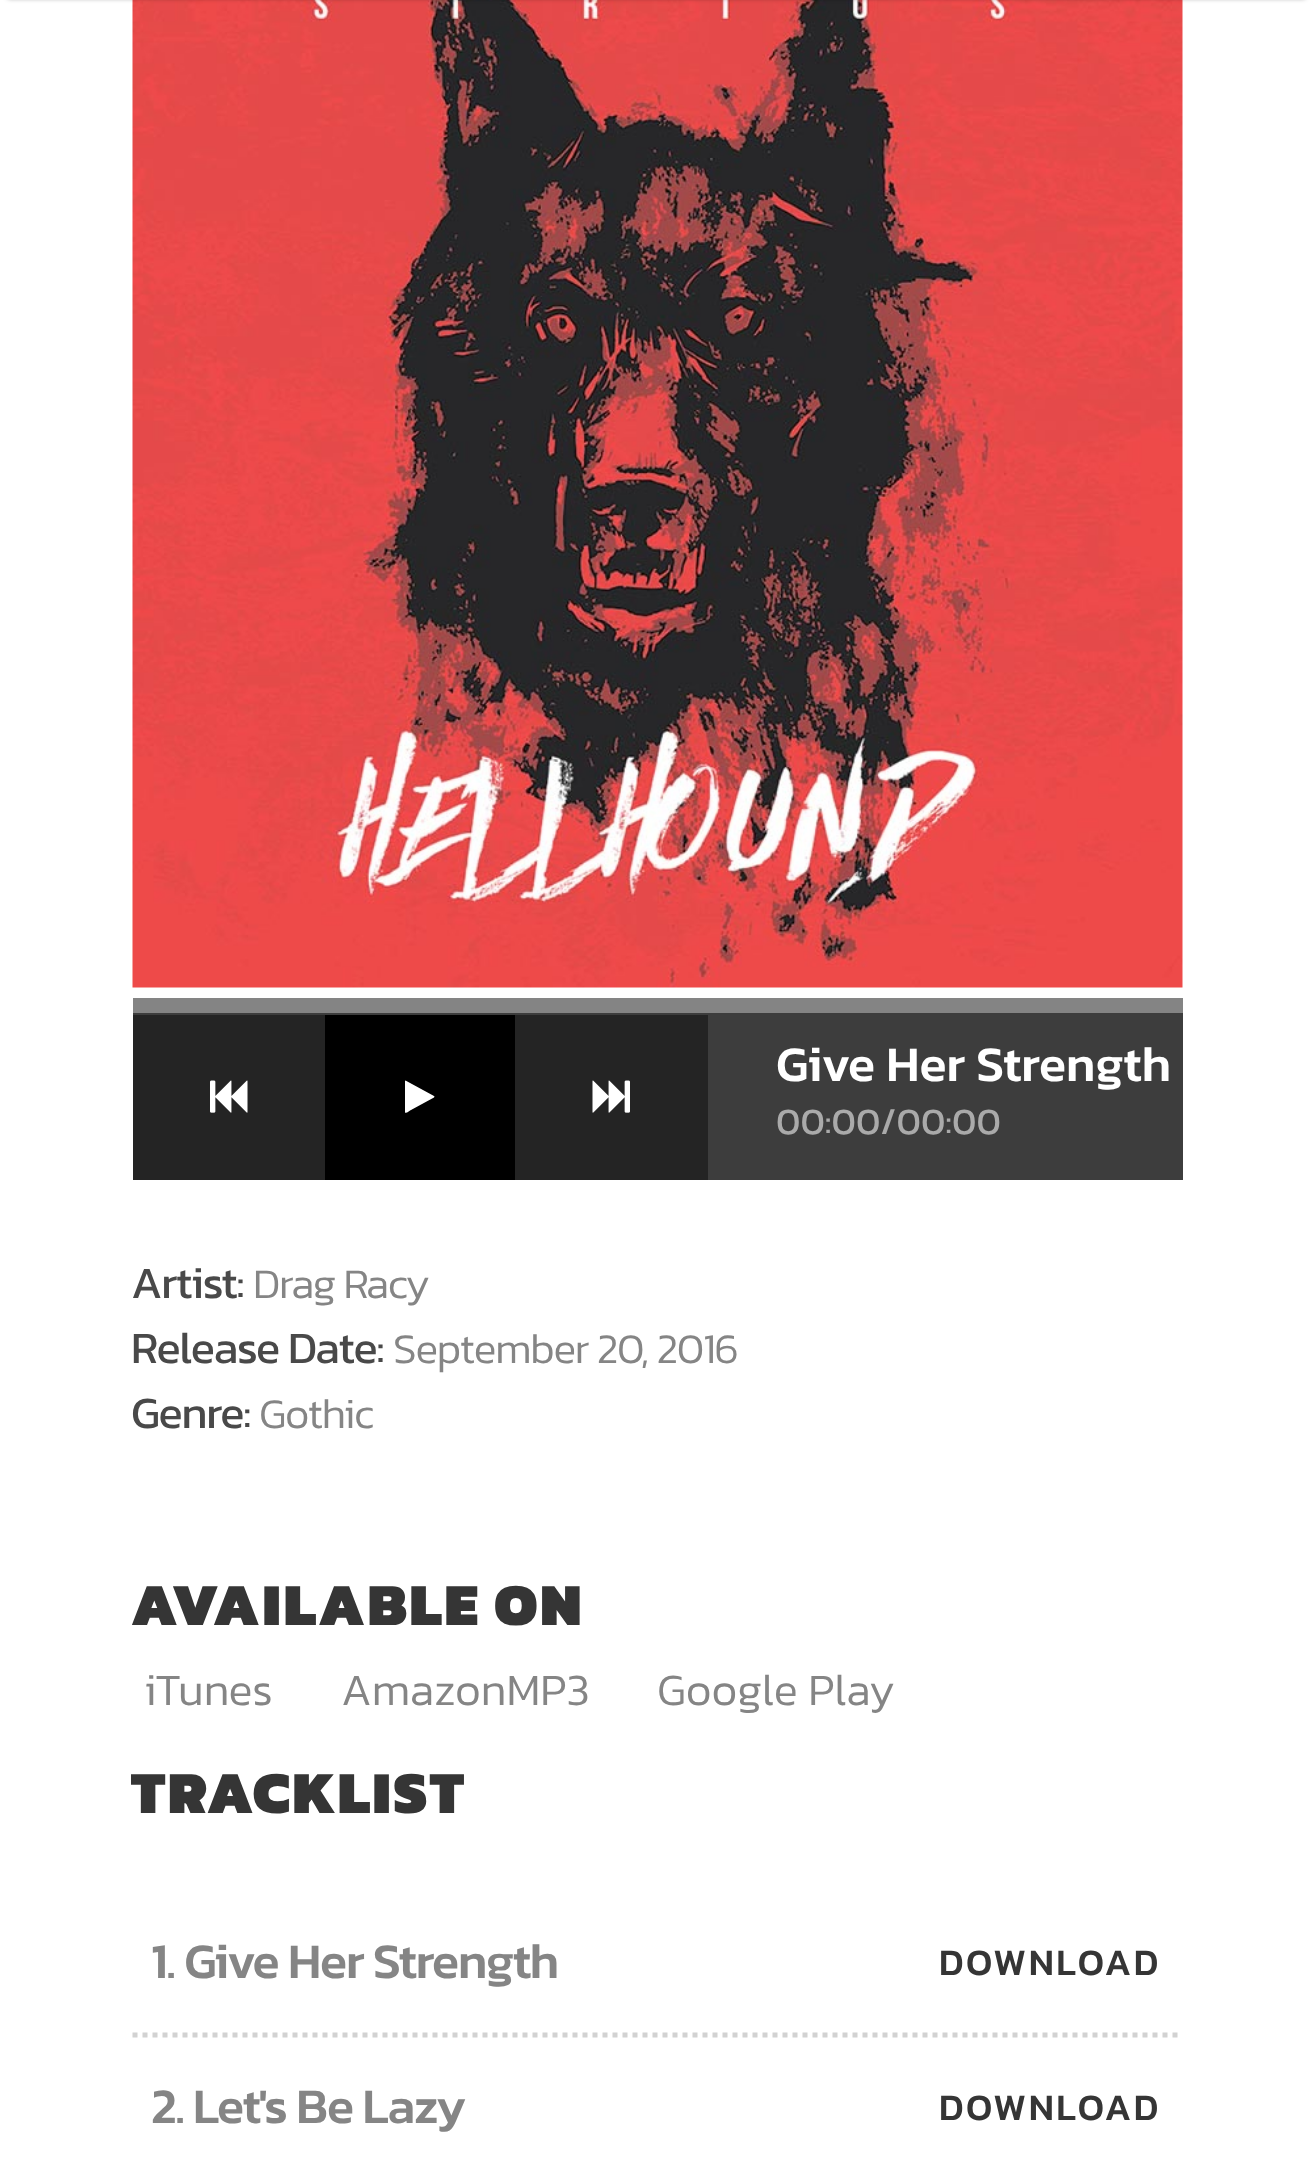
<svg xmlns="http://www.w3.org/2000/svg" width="1311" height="2172">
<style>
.a{font:500 50px Kanit;fill:#fff}
.b{font:37.5px Kanit;fill:#aaa}
.c{font:45px Kanit;letter-spacing:-1.25px;fill:#494949}
.d{font:300 42.5px Kanit;letter-spacing:-1.25px;fill:#858585}
.e{font:900 60px Kanit;letter-spacing:2.5px;fill:#353535}
.f{font:300 45px Kanit;fill:#858585}
.g{font:500 50px Kanit;letter-spacing:-1.25px;fill:#858585}
.h{font:500 37.5px Kanit;letter-spacing:2.5px;fill:#353535}
</style>
<rect width="100%" height="100%" fill="#fff"/>
<image href="1.png" x="132" y="0" width="1051" height="988"/>
<path fill="#00000080" filter="blur(2.5px)" d="M8 -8h1297v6H8z"/>
<path fill="#3d3d3d" d="M133 1013h1050v167H133z"/>
<path fill="#848484" d="M133 998h1050v15H133z"/>
<path fill="#242424" d="M133 1015h192v165H133z"/>
<image href="2.png" x="210" y="1080" width="38" height="33"/>
<path fill="#000" d="M325 1015h190v165H325z"/>
<path fill="#fff" d="M434 1097.5l-23 12.5c-1 .5-5 4-6 2.5v-31.5l.5-.5l28.5 15.5l.5 .5z"/>
<path fill="#242424" d="M515 1015h193v165H515z"/>
<image href="3.png" x="592" y="1080" width="38" height="33"/>
<path fill="none" stroke="#d2d2d2" stroke-width="5" stroke-dasharray="5 5" d="M132.5 2035h1050"/>
<text class="a" x="776" y="1081">Give Her Strength</text>
<text class="b" x="776" y="1134">00:00/00:00</text>
<text class="c" x="131" y="1298">Artist:</text>
<text class="d" x="253" y="1298">Drag Racy</text>
<text class="c" x="131" y="1363">Release Date:</text>
<text class="d" x="393" y="1363">September 20, 2016</text>
<text class="c" x="131" y="1428">Genre:</text>
<text class="d" x="259" y="1428">Gothic</text>
<text class="e" x="131" y="1625">AVAILABLE ON</text>
<text class="f" x="144" y="1705">iTunes</text>
<text class="f" x="341" y="1705">AmazonMP3</text>
<text class="f" x="657" y="1705">Google Play</text>
<text class="e" x="131" y="1813">TRACKLIST</text>
<text class="g" x="151" y="1978">1. Give Her Strength</text>
<text class="h" x="939" y="1975">DOWNLOAD</text>
<text class="g" x="151" y="2123">2. Let's Be Lazy</text>
<text class="h" x="939" y="2120">DOWNLOAD</text>
</svg>
